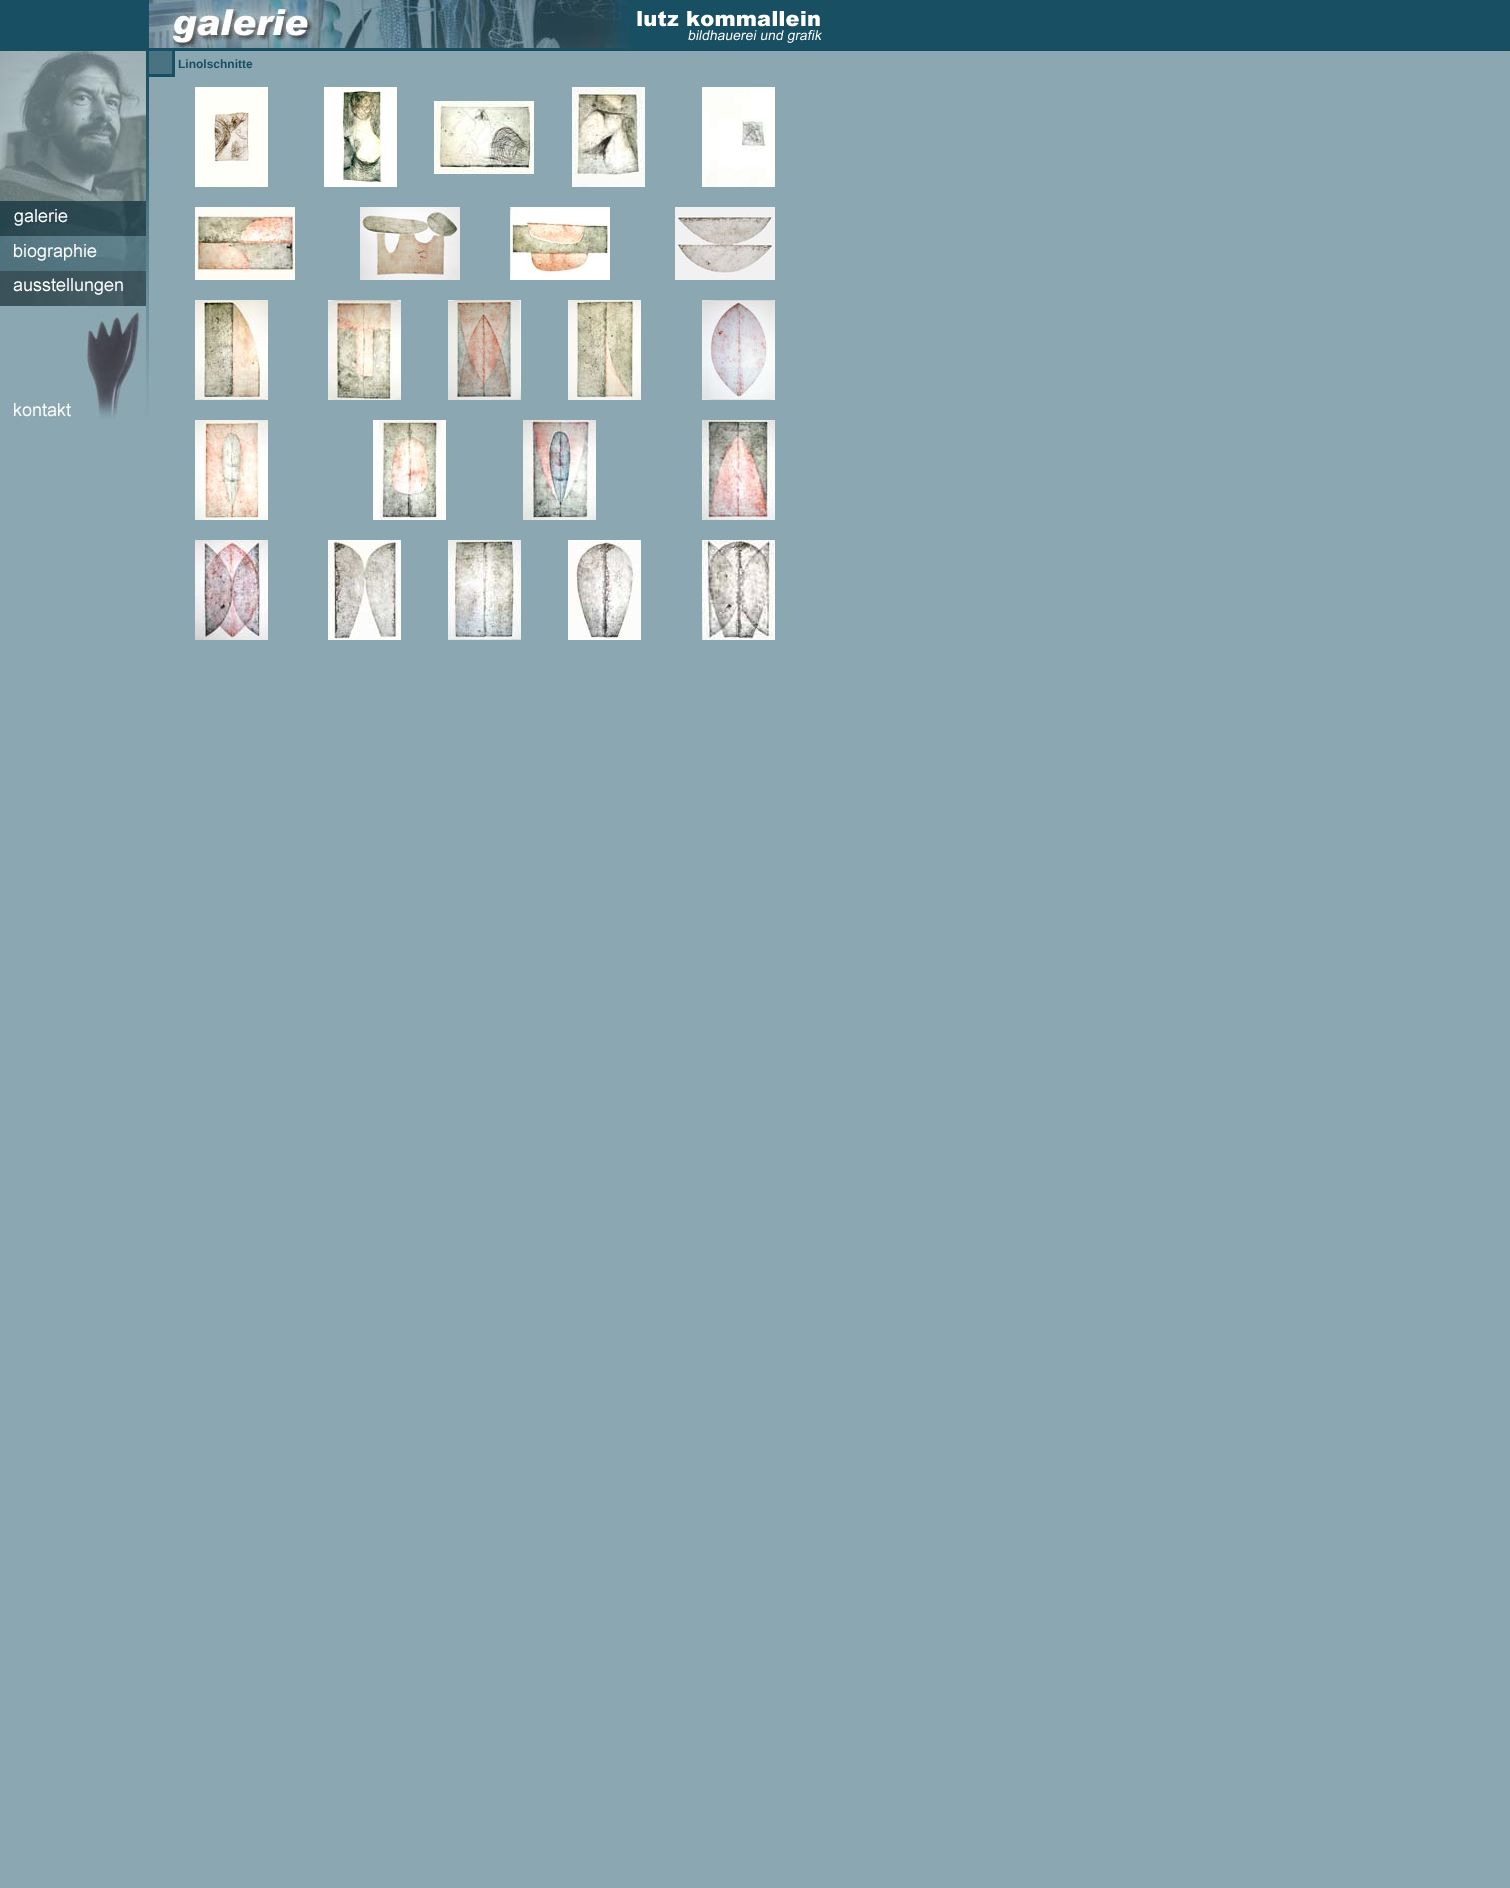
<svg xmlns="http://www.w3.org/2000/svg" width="1510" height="1888">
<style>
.a{font:bold 12px Liberation Sans;fill:#184f63}
</style>
<rect width="100%" height="100%" fill="#8ba7b1"/>
<path fill="#184f63" d="M0 0h1510v51H0z"/>
<image href="1.png" x="149" y="0" width="477" height="48"/>
<image href="2.png" x="626" y="3" width="196" height="47"/>
<image href="3.png" x="0" y="51" width="149" height="150"/>
<image href="4.png" x="0" y="201" width="149" height="35"/>
<image href="5.png" x="0" y="236" width="149" height="35"/>
<image href="6.png" x="0" y="271" width="149" height="35"/>
<image href="7.png" x="8" y="306" width="141" height="113"/>
<image href="8.png" x="149" y="51" width="26" height="26"/>
<image href="9.png" x="195" y="87" width="73" height="100"/>
<image href="10.png" x="324" y="87" width="73" height="100"/>
<image href="11.png" x="434" y="101" width="100" height="73"/>
<image href="12.png" x="572" y="87" width="73" height="100"/>
<image href="13.png" x="702" y="87" width="73" height="100"/>
<image href="14.png" x="195" y="207" width="100" height="73"/>
<image href="15.png" x="360" y="207" width="100" height="73"/>
<image href="16.png" x="510" y="207" width="100" height="73"/>
<image href="17.png" x="675" y="207" width="100" height="73"/>
<image href="18.png" x="195" y="300" width="73" height="100"/>
<image href="19.png" x="328" y="300" width="73" height="100"/>
<image href="20.png" x="448" y="300" width="73" height="100"/>
<image href="21.png" x="568" y="300" width="73" height="100"/>
<image href="22.png" x="702" y="300" width="73" height="100"/>
<image href="23.png" x="195" y="420" width="73" height="100"/>
<image href="24.png" x="373" y="420" width="73" height="100"/>
<image href="25.png" x="523" y="420" width="73" height="100"/>
<image href="26.png" x="702" y="420" width="73" height="100"/>
<image href="27.png" x="195" y="540" width="73" height="100"/>
<image href="28.png" x="328" y="540" width="73" height="100"/>
<image href="29.png" x="448" y="540" width="73" height="100"/>
<image href="30.png" x="568" y="540" width="73" height="100"/>
<image href="31.png" x="702" y="540" width="73" height="100"/>
<text class="a" x="178" y="68">Linolschnitte</text>
</svg>
